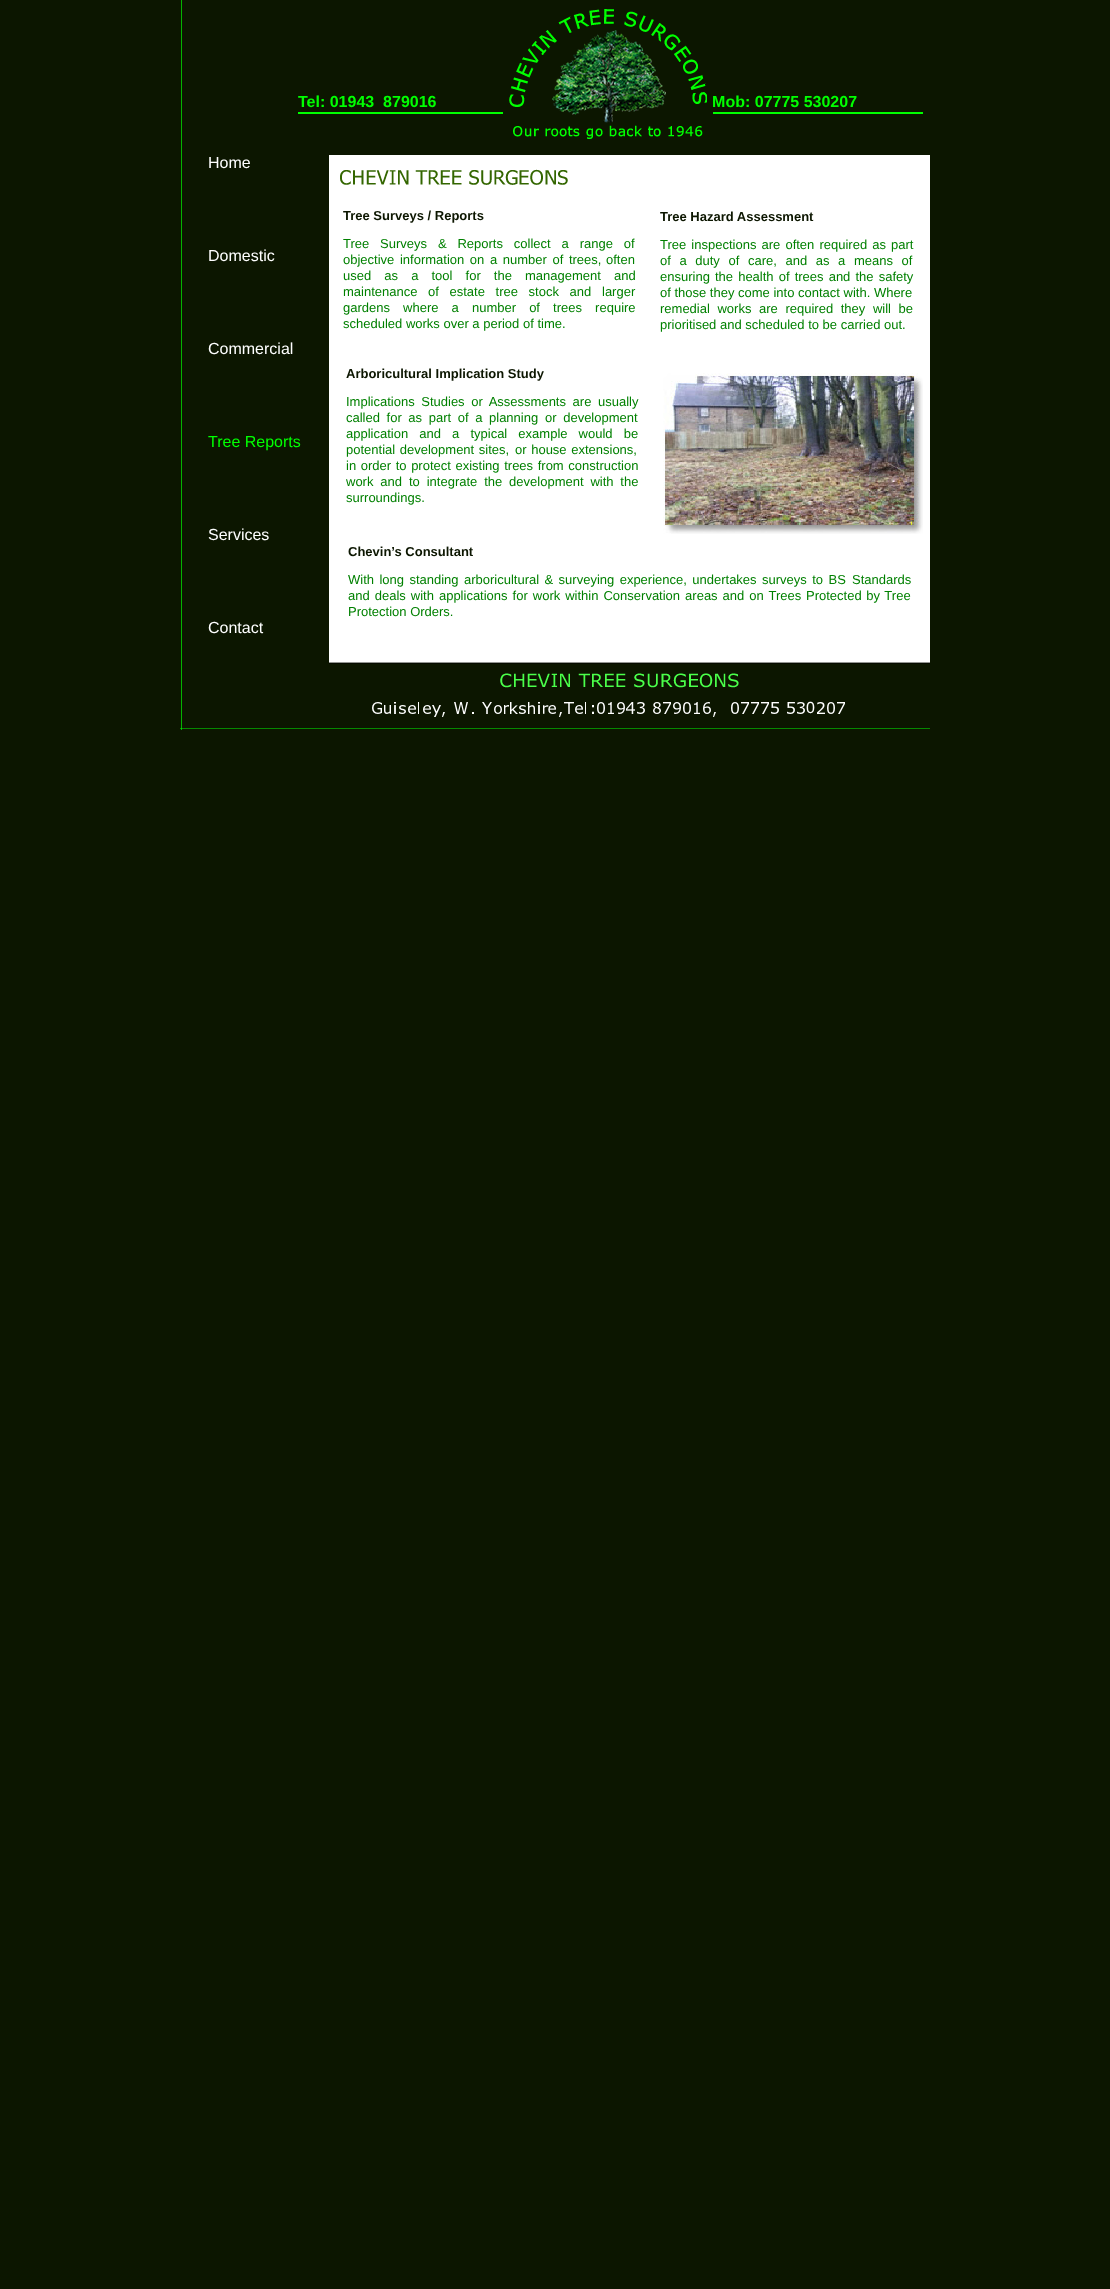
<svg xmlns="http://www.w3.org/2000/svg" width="1110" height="2289">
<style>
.a{font:bold 16px Liberation Sans;fill:#0f0}
.b{font:16px Liberation Sans;fill:#fff}
.c{font:16px Liberation Sans;fill:#0f0}
.d{font:bold 13px Liberation Sans;fill:#0c1600}
.e{font:13px Liberation Sans;fill:#008000}
</style>
<rect width="100%" height="100%" fill="#0c1600"/>
<path fill="#fff" d="M329 155h601v508H329z"/>
<path fill="#04b200" d="M181 0h1v730H181z"/>
<path fill="#0f0" d="M298 112h205v2H298z"/>
<path fill="#0f0" d="M713 112h210v2H713z"/>
<image href="2.png" x="340" y="169" width="228" height="16"/>
<image href="3.png" x="663" y="373" width="260" height="161"/>
<image href="4.png" x="329" y="662" width="601" height="68"/>
<image href="5.png" x="500" y="673" width="239" height="15"/>
<image href="6.png" x="372" y="702" width="10" height="12"/>
<image href="7.png" x="384" y="705" width="7" height="9"/>
<image href="8.png" x="394" y="702" width="2" height="12"/>
<image href="9.png" x="399" y="705" width="7" height="9"/>
<image href="10.png" x="408" y="705" width="8" height="9"/>
<path fill="#fff" d="M418 702h1v12H418z"/>
<image href="10.png" x="423" y="705" width="8" height="9"/>
<image href="11.png" x="432" y="705" width="9" height="12"/>
<image href="12.png" x="454" y="702" width="14" height="12"/>
<image href="13.png" x="482" y="702" width="10" height="12"/>
<image href="14.png" x="494" y="705" width="8" height="9"/>
<image href="15.png" x="504" y="705" width="5" height="9"/>
<image href="16.png" x="510" y="702" width="8" height="12"/>
<image href="9.png" x="519" y="705" width="7" height="9"/>
<image href="17.png" x="528" y="702" width="7" height="12"/>
<image href="8.png" x="538" y="702" width="2" height="12"/>
<image href="18.png" x="543" y="705" width="13" height="9"/>
<image href="19.png" x="564" y="702" width="10" height="12"/>
<image href="10.png" x="575" y="705" width="8" height="9"/>
<path fill="#fff" d="M585 702h1v12H585z"/>
<image href="20.png" x="592" y="705" width="2" height="9"/>
<image href="21.png" x="597" y="702" width="8" height="12"/>
<image href="22.png" x="608" y="702" width="6" height="12"/>
<image href="23.png" x="617" y="702" width="8" height="12"/>
<image href="24.png" x="626" y="702" width="9" height="12"/>
<image href="25.png" x="637" y="702" width="8" height="12"/>
<image href="26.png" x="653" y="702" width="8" height="12"/>
<image href="27.png" x="663" y="702" width="8" height="12"/>
<image href="23.png" x="673" y="702" width="8" height="12"/>
<image href="21.png" x="683" y="702" width="8" height="12"/>
<image href="22.png" x="694" y="702" width="6" height="12"/>
<image href="28.png" x="703" y="702" width="8" height="12"/>
<image href="21.png" x="731" y="702" width="8" height="12"/>
<image href="27.png" x="741" y="702" width="8" height="12"/>
<image href="27.png" x="751" y="702" width="8" height="12"/>
<image href="27.png" x="761" y="702" width="8" height="12"/>
<image href="29.png" x="771" y="702" width="8" height="12"/>
<image href="29.png" x="787" y="702" width="8" height="12"/>
<image href="25.png" x="797" y="702" width="8" height="12"/>
<image href="30.png" x="817" y="702" width="8" height="12"/>
<image href="21.png" x="827" y="702" width="8" height="12"/>
<image href="27.png" x="837" y="702" width="8" height="12"/>
<image href="31.png" x="442" y="712" width="3" height="5"/>
<path fill="#fff" d="M472 712h2v2H472z"/>
<image href="31.png" x="559" y="712" width="3" height="5"/>
<image href="31.png" x="713" y="712" width="3" height="5"/>
<path fill="#00ff007d" d="M180 728h750v1H180z"/>
<text class="a" xml:space="preserve" x="298" y="107">Tel: 01943  879016                                                              Mob: 07775 530207</text>
<image href="1.png" x="509" y="9" width="198" height="130"/>
<text class="b" x="208" y="168">Home</text>
<text class="b" x="208" y="261">Domestic</text>
<text class="b" x="208" y="354">Commercial</text>
<text class="c" x="208" y="447">Tree Reports</text>
<text class="b" x="208" y="540">Services</text>
<text class="b" x="208" y="633">Contact</text>
<text class="d" x="343" y="220">Tree Surveys / Reports</text>
<text class="e" x="343" y="248" word-spacing="7.25">Tree Surveys &amp; Reports collect a range of</text>
<text class="e" x="343" y="264" word-spacing="2">objective information on a number of trees,</text>
<text class="e" x="606" y="264">often</text>
<text class="e" x="343" y="280" word-spacing="9.5">used as a tool for the management and</text>
<text class="e" x="343" y="296" word-spacing="7">maintenance of estate tree stock and</text>
<text class="e" x="602" y="296">larger</text>
<text class="e" x="343" y="312" word-spacing="9.5">gardens where a number of trees require</text>
<text class="e" x="343" y="328">scheduled works over a period of time.</text>
<text class="d" x="660" y="221">Tree Hazard Assessment</text>
<text class="e" x="660" y="249" word-spacing="1.5">Tree inspections are often required as part</text>
<text class="e" x="660" y="265" word-spacing="5">of a duty of care, and as a means of</text>
<text class="e" x="660" y="281" word-spacing="1.5">ensuring the health of trees and the safety</text>
<text class="e" x="660" y="297">of those they come into contact with. Where</text>
<text class="e" x="660" y="313" word-spacing="4">remedial works are required they will be</text>
<text class="e" x="660" y="329">prioritised and scheduled to be carried out.</text>
<text class="d" x="346" y="378">Arboricultural Implication Study</text>
<text class="e" x="346" y="406" word-spacing="3">Implications Studies or Assessments are usually</text>
<text class="e" x="346" y="422" word-spacing="3">called for as part of a planning</text>
<text class="e" x="545" y="422" word-spacing="3">or development</text>
<text class="e" x="346" y="438" word-spacing="7.5">application and a typical example would be</text>
<text class="e" x="346" y="454" word-spacing="1">potential development sites,</text>
<text class="e" x="515" y="454" word-spacing="1">or house extensions,</text>
<text class="e" x="346" y="470" word-spacing="1">in order to protect existing trees from construction</text>
<text class="e" x="346" y="486" word-spacing="3.25">work and</text>
<text class="e" x="409" y="486" word-spacing="3.25">to integrate the development with the</text>
<text class="e" x="346" y="502">surroundings.</text>
<text class="d" x="348" y="556">Chevin’s Consultant</text>
<text class="e" x="348" y="584" word-spacing="1.8">With long standing arboricultural &amp; surveying experience, undertakes surveys to BS</text>
<text class="e" x="852" y="584">Standards</text>
<text class="e" x="348" y="600" word-spacing="1.4">and deals with applications for work within Conservation areas and on Trees</text>
<text class="e" x="806" y="600" word-spacing="1">Protected by Tree</text>
<text class="e" x="348" y="616">Protection Orders.</text>
<text class="b" x="806" y="713">0</text>
</svg>
